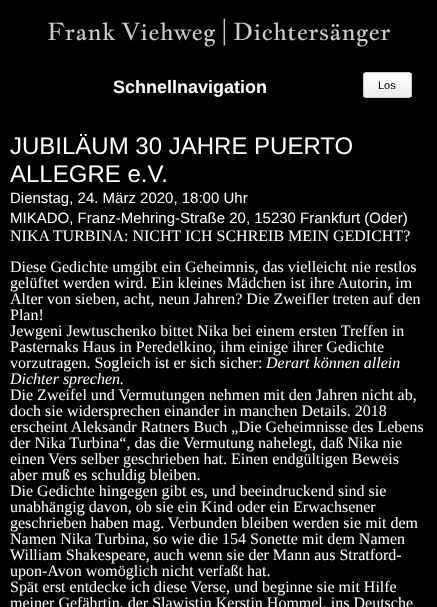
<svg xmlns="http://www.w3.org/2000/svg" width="437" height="607">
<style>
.a{font:24px Jacques Francois;fill:#ccc}
.b{font:bold 18px Liberation Sans;fill:#fff}
.c{font:11px Liberation Sans;fill:#000}
.d{font:24px Liberation Sans;fill:#fff}
.e{font:15px Liberation Sans;fill:#fff}
.f{font:16px Liberation Serif;fill:#fff}
.g{font:italic 16px Liberation Serif;fill:#fff}
</style>
<defs>
<clipPath id="clip1"><rect x="363" y="72" width="49" height="26" rx="3"/></clipPath>
<linearGradient id="g1" gradientUnits="userSpaceOnUse" x1="388" y1="73" x2="388" y2="97"><stop offset="0" stop-color="#fff"/><stop offset="1" stop-color="#ececec"/></linearGradient>
</defs>
<rect width="100%" height="100%" fill="#000"/>
<g clip-path="url(#clip1)">
<path fill="url(#g1)" d="M363 73h49v24H363z"/>
</g>
<rect fill="none" stroke="#ccc" x="363.5" y="72.5" width="48" height="25" rx="2.5"/>
<text class="a" x="47" y="40">Frank Viehweg | Dichtersänger</text>
<text class="b" x="113" y="93">Schnellnavigation</text>
<text class="c" x="378" y="89">Los</text>
<text class="d" x="10" y="154">JUBILÄUM 30 JAHRE PUERTO</text>
<text class="d" x="10" y="182">ALLEGRE e.V.</text>
<text class="e" x="10" y="203">Dienstag, 24. März 2020, 18:00 Uhr</text>
<text class="e" x="10" y="223">MIKADO, Franz-Mehring-Straße 20, 15230 Frankfurt (Oder)</text>
<text class="f" x="10" y="241">NIKA TURBINA: NICHT ICH SCHREIB MEIN GEDICHT?</text>
<text class="f" x="10" y="272">Diese Gedichte umgibt ein Geheimnis, das vielleicht nie restlos</text>
<text class="f" x="10" y="288">gelüftet werden wird. Ein kleines Mädchen ist ihre Autorin, im</text>
<text class="f" x="10" y="304">Alter von sieben, acht, neun Jahren? Die Zweifler treten auf den</text>
<text class="f" x="10" y="320">Plan!</text>
<text class="f" x="10" y="336">Jewgeni Jewtuschenko bittet Nika bei einem ersten Treffen in</text>
<text class="f" x="10" y="352">Pasternaks Haus in Peredelkino, ihm einige ihrer Gedichte</text>
<text class="f" x="10" y="368">vorzutragen. Sogleich ist er sich sicher:</text>
<text class="g" x="266" y="368">Derart können allein</text>
<text class="g" x="10" y="384">Dichter sprechen.</text>
<text class="f" x="10" y="400">Die Zweifel und Vermutungen nehmen mit den Jahren nicht ab,</text>
<text class="f" x="10" y="416">doch sie widersprechen einander in manchen Details. 2018</text>
<text class="f" x="10" y="432">erscheint Aleksandr Ratners Buch „Die Geheimnisse des Lebens</text>
<text class="f" x="10" y="448">der Nika Turbina“, das die Vermutung nahelegt, daß Nika nie</text>
<text class="f" x="10" y="464">einen Vers selber geschrieben hat. Einen endgültigen Beweis</text>
<text class="f" x="10" y="480">aber muß es schuldig bleiben.</text>
<text class="f" x="10" y="496">Die Gedichte hingegen gibt es, und beeindruckend sind sie</text>
<text class="f" x="10" y="512">unabhängig davon, ob sie ein Kind oder ein Erwachsener</text>
<text class="f" x="10" y="528">geschrieben haben mag. Verbunden bleiben werden sie mit dem</text>
<text class="f" x="10" y="544">Namen Nika Turbina, so wie die 154 Sonette mit dem Namen</text>
<text class="f" x="10" y="560">William Shakespeare, auch wenn sie der Mann aus Stratford-</text>
<text class="f" x="10" y="576">upon-Avon womöglich nicht verfaßt hat.</text>
<text class="f" x="10" y="592">Spät erst entdecke ich diese Verse, und beginne sie mit Hilfe</text>
<text class="f" x="10" y="608">meiner Gefährtin, der Slawistin Kerstin Hommel, ins Deutsche</text>
</svg>
